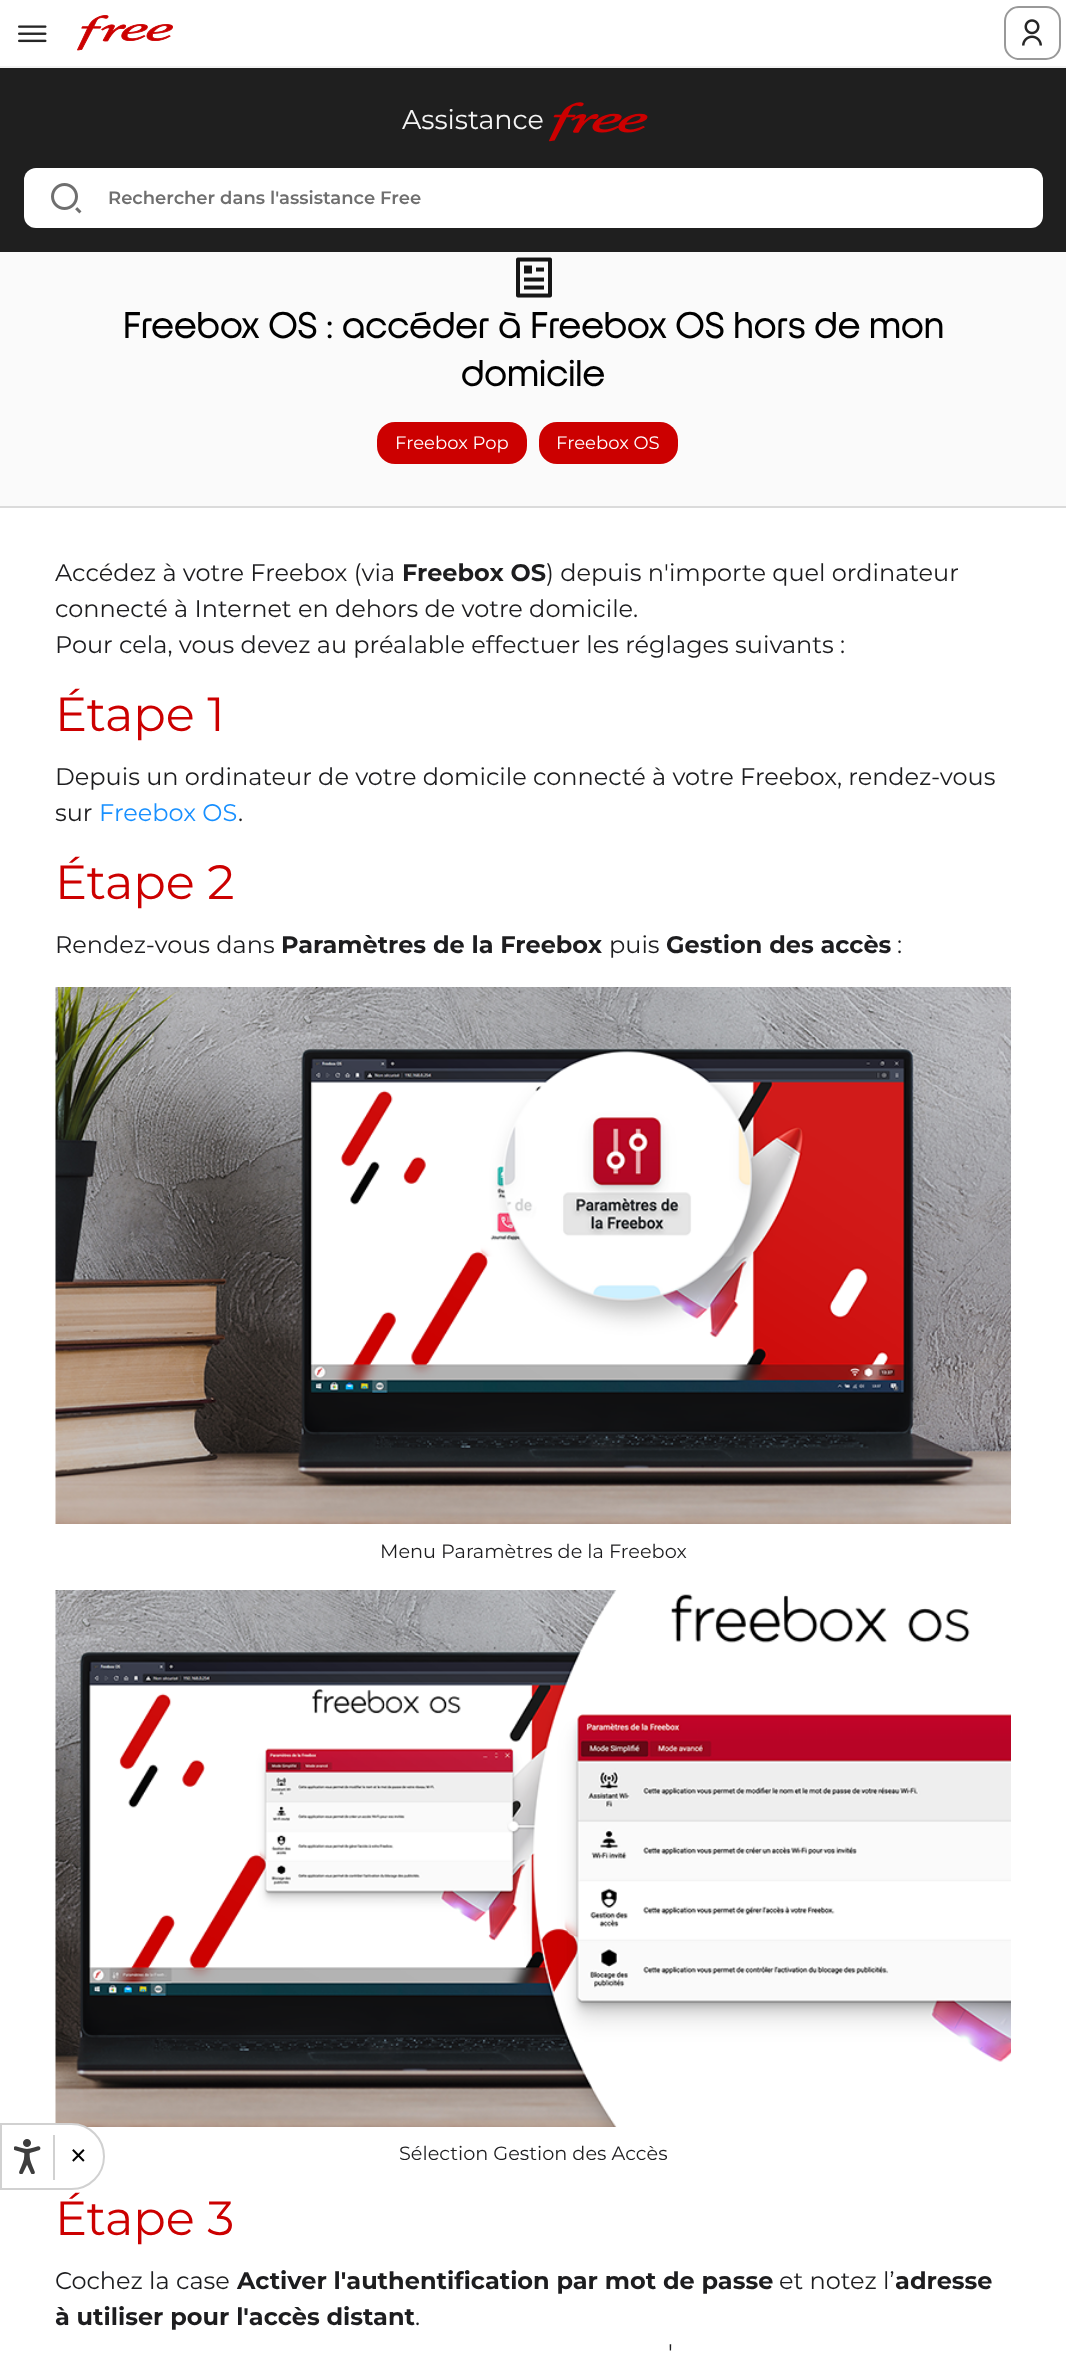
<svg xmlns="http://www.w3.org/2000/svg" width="1066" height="2354">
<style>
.a{font:27px Montserrat;fill:#f4f4f4}
.b{font:54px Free;letter-spacing:-7px;fill:#c00}
.c{font:600 18px Montserrat;fill:#6f6f6f}
.d{font:36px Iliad;fill:#000}
.e{font:18px Montserrat;fill:#fff}
.f{font:24px Montserrat;fill:#1d1d1f}
.g{font:bold 24px Montserrat;fill:#1d1d1f}
.h{font:48px Montserrat;fill:#c00}
.i{font:24px Montserrat;fill:#1890ff}
.j{font:19.25px Montserrat;fill:#1d1d1f}
.k{font:36px Montserrat;fill:#000}
</style>
<rect width="100%" height="100%" fill="#fff"/>
<path fill="#f3f3f3" d="M0 66h1066v2H0z"/>
<image href="1.png" x="18" y="25" width="29" height="18"/>
<image href="2.png" x="77" y="15" width="96" height="36"/>
<rect fill="none" stroke="#999" stroke-width="2" x="1005" y="7" width="55" height="52" rx="14"/>
<image href="3.png" x="1022" y="19" width="20" height="27"/>
<path fill="#1f1f1f" d="M0 68h1066v184H0z"/>
<rect fill="#fff" x="24" y="168" width="1019" height="60" rx="12"/>
<image href="4.png" x="51" y="183" width="31" height="31"/>
<path fill="#fafafa" d="M0 252h1066v254H0z"/>
<path fill="#dbdbdb" d="M0 506h1066v2H0z"/>
<image href="5.png" x="516" y="257" width="36" height="41"/>
<rect fill="#c00" x="377" y="422" width="150" height="42" rx="18"/>
<rect fill="#c00" x="539" y="422" width="139" height="42" rx="18"/>
<image href="6.png" x="55" y="987" width="956" height="537"/>
<image href="7.png" x="55" y="1590" width="956" height="537"/>
<path fill="#fff" stroke="#d1d1d1" stroke-width="2" d="M1 2124h70.5c18 0 32.5 14.5 32.5 32.5c0 18-14.5 32.5-32.5 32.5h-70.5z"/>
<image href="8.png" x="14" y="2139" width="27" height="35"/>
<path fill="#d1d1d1" d="M53 2135h2v45H53z"/>
<text class="a" x="402" y="129">Assistance</text>
<text class="b" x="549" y="137">free</text>
<text class="c" x="108" y="204">Rechercher dans l'assistance Free</text>
<text class="d" x="123" y="338">Freebox OS : accéder à Freebox OS hors de mon</text>
<text class="d" x="461" y="386">domicile</text>
<text class="e" x="395" y="449">Freebox Pop</text>
<text class="e" x="556" y="449">Freebox OS</text>
<text class="f" x="55" y="581">Accédez à votre Freebox (via</text>
<text class="g" x="402" y="581">Freebox OS</text>
<text class="f" x="546" y="581">) depuis n'importe quel ordinateur</text>
<text class="f" x="55" y="617">connecté à Internet en dehors de votre domicile.</text>
<text class="f" x="55" y="653">Pour cela, vous devez au préalable effectuer les réglages suivants :</text>
<text class="h" x="55" y="731">Étape 1</text>
<text class="f" x="55" y="785">Depuis un ordinateur de votre domicile connecté à votre Freebox, rendez-vous</text>
<text class="f" x="55" y="821">sur</text>
<text class="i" x="99" y="821">Freebox OS</text>
<text class="f" x="238" y="821">.</text>
<text class="h" x="55" y="899">Étape 2</text>
<text class="f" x="55" y="953">Rendez-vous dans</text>
<text class="g" x="281" y="953">Paramètres de la Freebox</text>
<text class="f" x="609" y="953">puis</text>
<text class="g" x="666" y="953">Gestion des accès</text>
<text class="f" x="897" y="953">:</text>
<text class="j" x="380" y="1558">Menu Paramètres de la Freebox</text>
<text class="j" x="399" y="2160">Sélection Gestion des Accès</text>
<text class="h" x="55" y="2235">Étape 3</text>
<text class="f" x="55" y="2289">Cochez la case</text>
<text class="g" x="237" y="2289">Activer l'authentification par mot de passe</text>
<text class="f" x="779" y="2289">et notez l’</text>
<text class="g" x="895" y="2289">adresse</text>
<text class="g" x="55" y="2325">à utiliser pour l'accès distant</text>
<text class="f" x="415" y="2325">.</text>
<text class="f" x="668" y="2361">'</text>
<text class="k" x="68" y="2168">×</text>
</svg>
